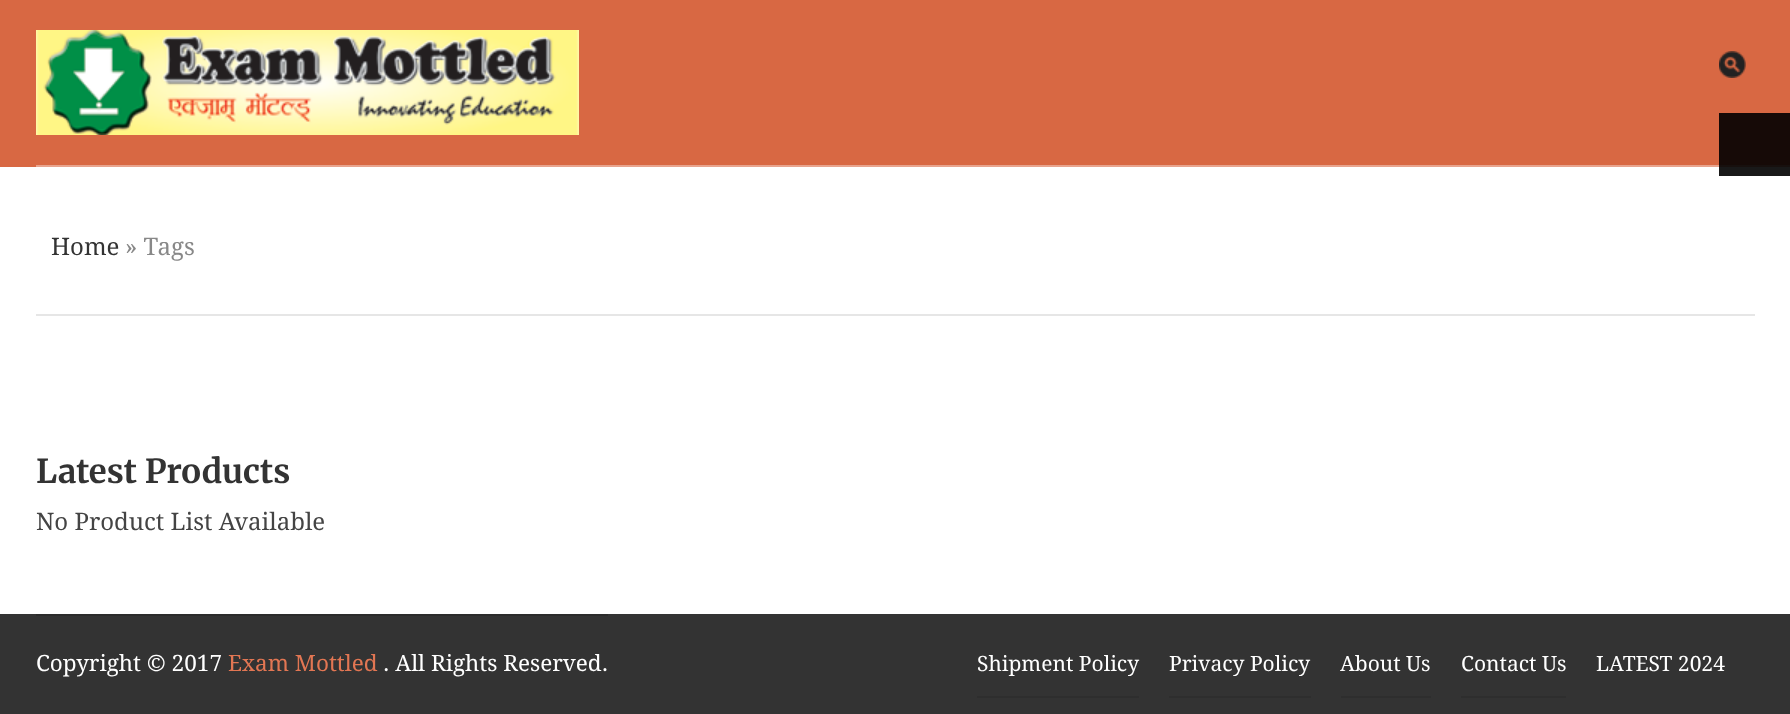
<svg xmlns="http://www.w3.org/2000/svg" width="1790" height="714">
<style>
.a{font:24px Droid Serif;fill:#333}
.b{font:24px Droid Serif;fill:#888}
.c{font:bold 33px Merriweather;fill:#333}
.d{font:24px Droid Serif;fill:#444}
.e{font:22.5px Droid Serif;fill:#fff}
.f{font:22.5px Droid Serif;fill:#e27653}
.g{font:21px Droid Serif;fill:#fff}
</style>
<rect width="100%" height="100%" fill="#fff"/>
<path fill="#191919" d="M1719 167h71v9H1719z"/>
<path fill="#d86843" d="M0 0h1790v167H0z"/>
<image href="1.png" x="1719" y="51" width="27" height="27"/>
<path fill="#160a07" d="M1719 113h71v52H1719z"/>
<path fill="#e8a48e" d="M36 165h1683v2H36z"/>
<path fill="#17100e" d="M1719 165h71v2H1719z"/>
<image href="2.png" x="36" y="30" width="543" height="105"/>
<path fill="#e6e6e6" d="M36 314h1719v2H36z"/>
<path fill="#333" d="M0 614h1790v100H0z"/>
<path fill="#2b2b2b" d="M36 614h572v2H36z"/>
<path fill="#2e2e2e" d="M977 696h162v2H977z"/>
<path fill="#2e2e2e" d="M1169 696h142v2H1169z"/>
<path fill="#2e2e2e" d="M1341 696h90v2H1341z"/>
<path fill="#2e2e2e" d="M1461 696h105v2H1461z"/>
<text class="a" x="51" y="255">Home</text>
<text class="b" x="125" y="255">» Tags</text>
<text class="c" x="36" y="483">Latest Products</text>
<text class="d" x="36" y="530">No Product List Available</text>
<text class="e" x="36" y="671">Copyright © 2017</text>
<text class="f" x="228" y="671">Exam Mottled</text>
<text class="e" x="383" y="671">. All Rights Reserved.</text>
<text class="g" x="977" y="671">Shipment Policy</text>
<text class="g" x="1169" y="671">Privacy Policy</text>
<text class="g" x="1340" y="671">About Us</text>
<text class="g" x="1461" y="671">Contact Us</text>
<text class="g" x="1596" y="671">LATEST 2024</text>
</svg>
